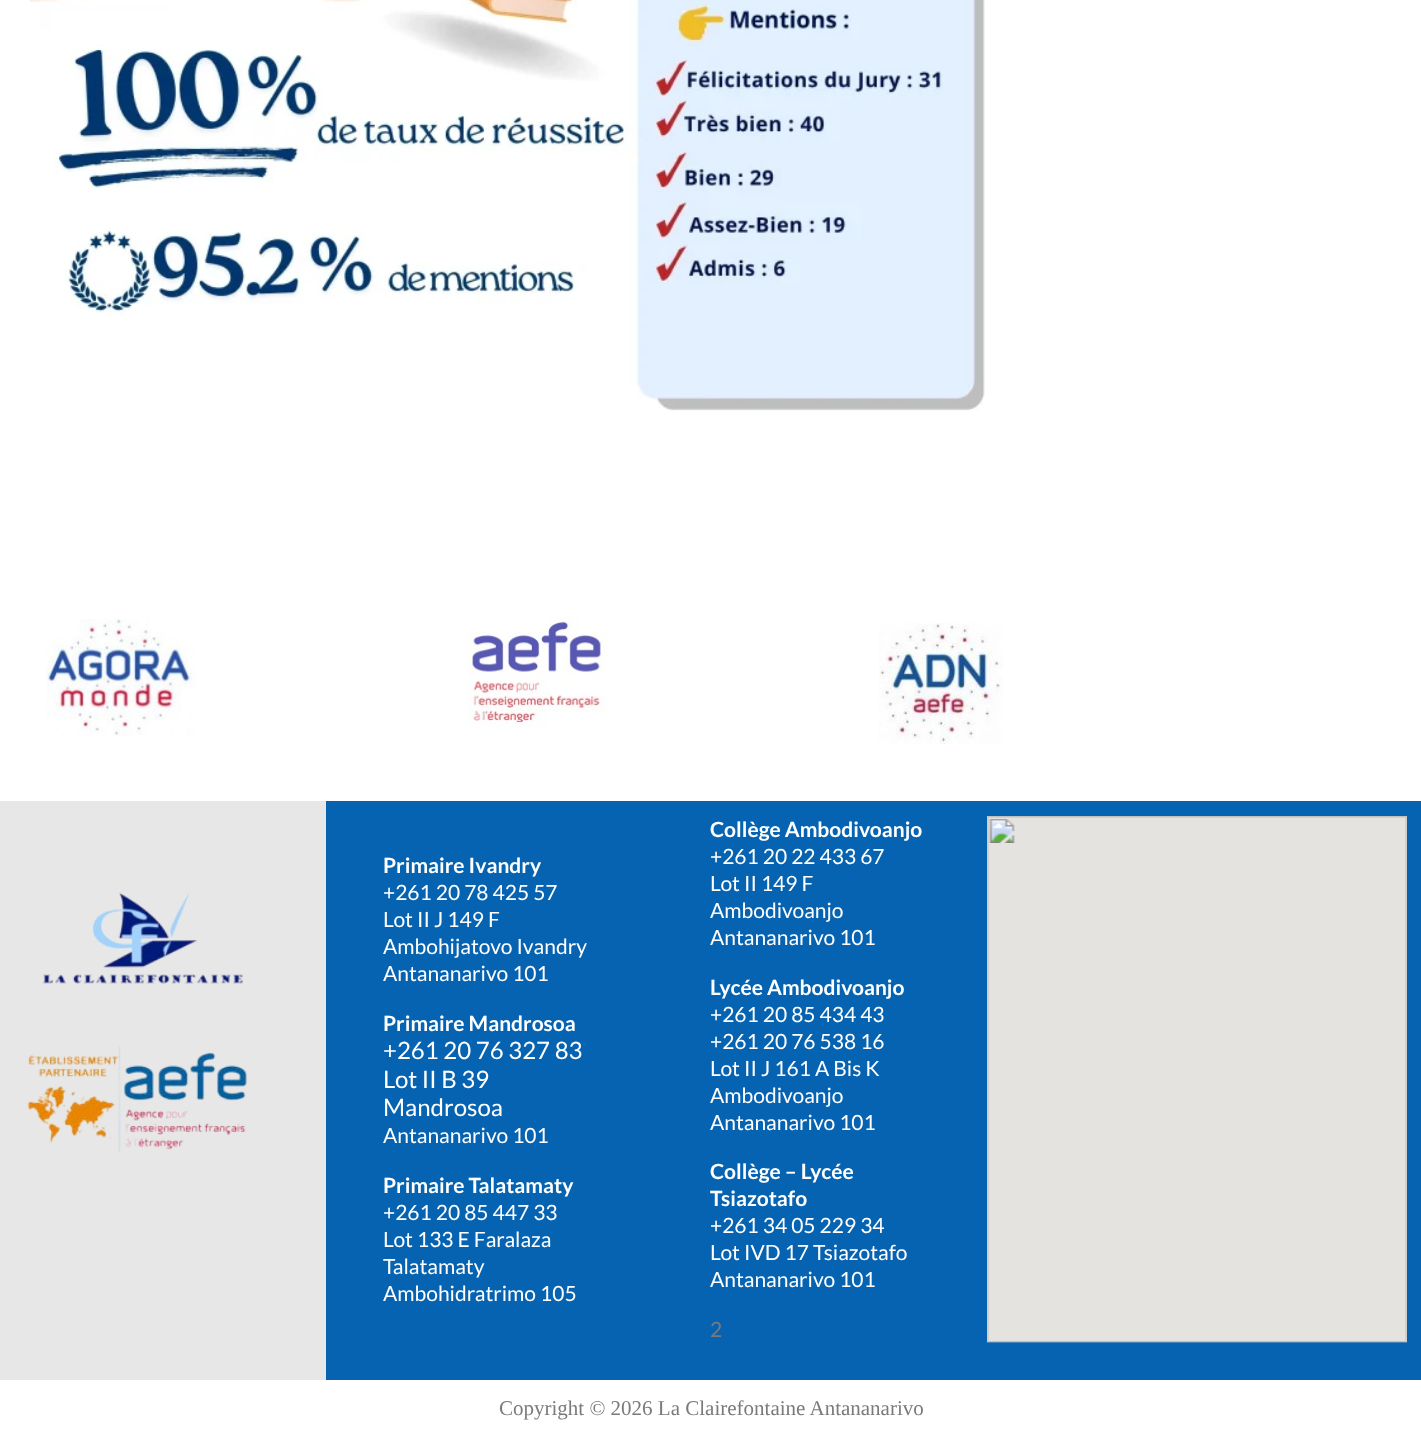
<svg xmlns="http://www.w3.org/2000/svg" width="1421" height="1437">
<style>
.a{font:bold 21px Lato;fill:#fff}
.b{font:21px Lato;fill:#fff}
.c{font:24px Lato;fill:#fff}
.d{font:21px Lato;fill:#7a7a7a}
.e{font:21px Liberation Serif;fill:#7a7a7a}
</style>
<rect width="100%" height="100%" fill="#fff"/>
<image href="1.png" x="30" y="0" width="955" height="411"/>
<image href="2.png" x="46" y="619" width="151" height="117"/>
<image href="3.png" x="467" y="615" width="141" height="113"/>
<image href="4.png" x="879" y="623" width="124" height="121"/>
<path fill="#e7e7e7" d="M0 801h326v579H0z"/>
<image href="5.png" x="42" y="892" width="201" height="92"/>
<image href="6.png" x="27" y="1046" width="220" height="106"/>
<path fill="#0663b1" d="M326 801h1095v579H326z"/>
<image href="7.png" x="987" y="816" width="420" height="527"/>
<text class="a" x="383" y="873">Primaire Ivandry</text>
<text class="b" x="383" y="900">+261 20 78 425 57</text>
<text class="b" x="383" y="927">Lot II J 149 F</text>
<text class="b" x="383" y="954">Ambohijatovo Ivandry</text>
<text class="b" x="383" y="981">Antananarivo 101</text>
<text class="a" x="383" y="1031">Primaire Mandrosoa</text>
<text class="c" x="383" y="1059">+261 20 76 327 83</text>
<text class="c" x="383" y="1088">Lot II B 39</text>
<text class="c" x="383" y="1116">Mandrosoa</text>
<text class="b" x="383" y="1143">Antananarivo 101</text>
<text class="a" x="383" y="1193">Primaire Talatamaty</text>
<text class="b" x="383" y="1220">+261 20 85 447 33</text>
<text class="b" x="383" y="1247">Lot 133 E Faralaza</text>
<text class="b" x="383" y="1274">Talatamaty</text>
<text class="b" x="383" y="1301">Ambohidratrimo 105</text>
<text class="a" x="710" y="837">Collège Ambodivoanjo</text>
<text class="b" x="710" y="864">+261 20 22 433 67</text>
<text class="b" x="710" y="891">Lot II 149 F</text>
<text class="b" x="710" y="918">Ambodivoanjo</text>
<text class="b" x="710" y="945">Antananarivo 101</text>
<text class="a" x="710" y="995">Lycée Ambodivoanjo</text>
<text class="b" x="710" y="1022">+261 20 85 434 43</text>
<text class="b" x="710" y="1049">+261 20 76 538 16</text>
<text class="b" x="710" y="1076">Lot II J 161 A Bis K</text>
<text class="b" x="710" y="1103">Ambodivoanjo</text>
<text class="b" x="710" y="1130">Antananarivo 101</text>
<text class="a" x="710" y="1179">Collège – Lycée</text>
<text class="a" x="710" y="1206">Tsiazotafo</text>
<text class="b" x="710" y="1233">+261 34 05 229 34</text>
<text class="b" x="710" y="1260">Lot IVD 17 Tsiazotafo</text>
<text class="b" x="710" y="1287">Antananarivo 101</text>
<text class="d" x="710" y="1337">2</text>
<text class="e" x="499" y="1415">Copyright © 2026 La Clairefontaine Antananarivo</text>
</svg>
